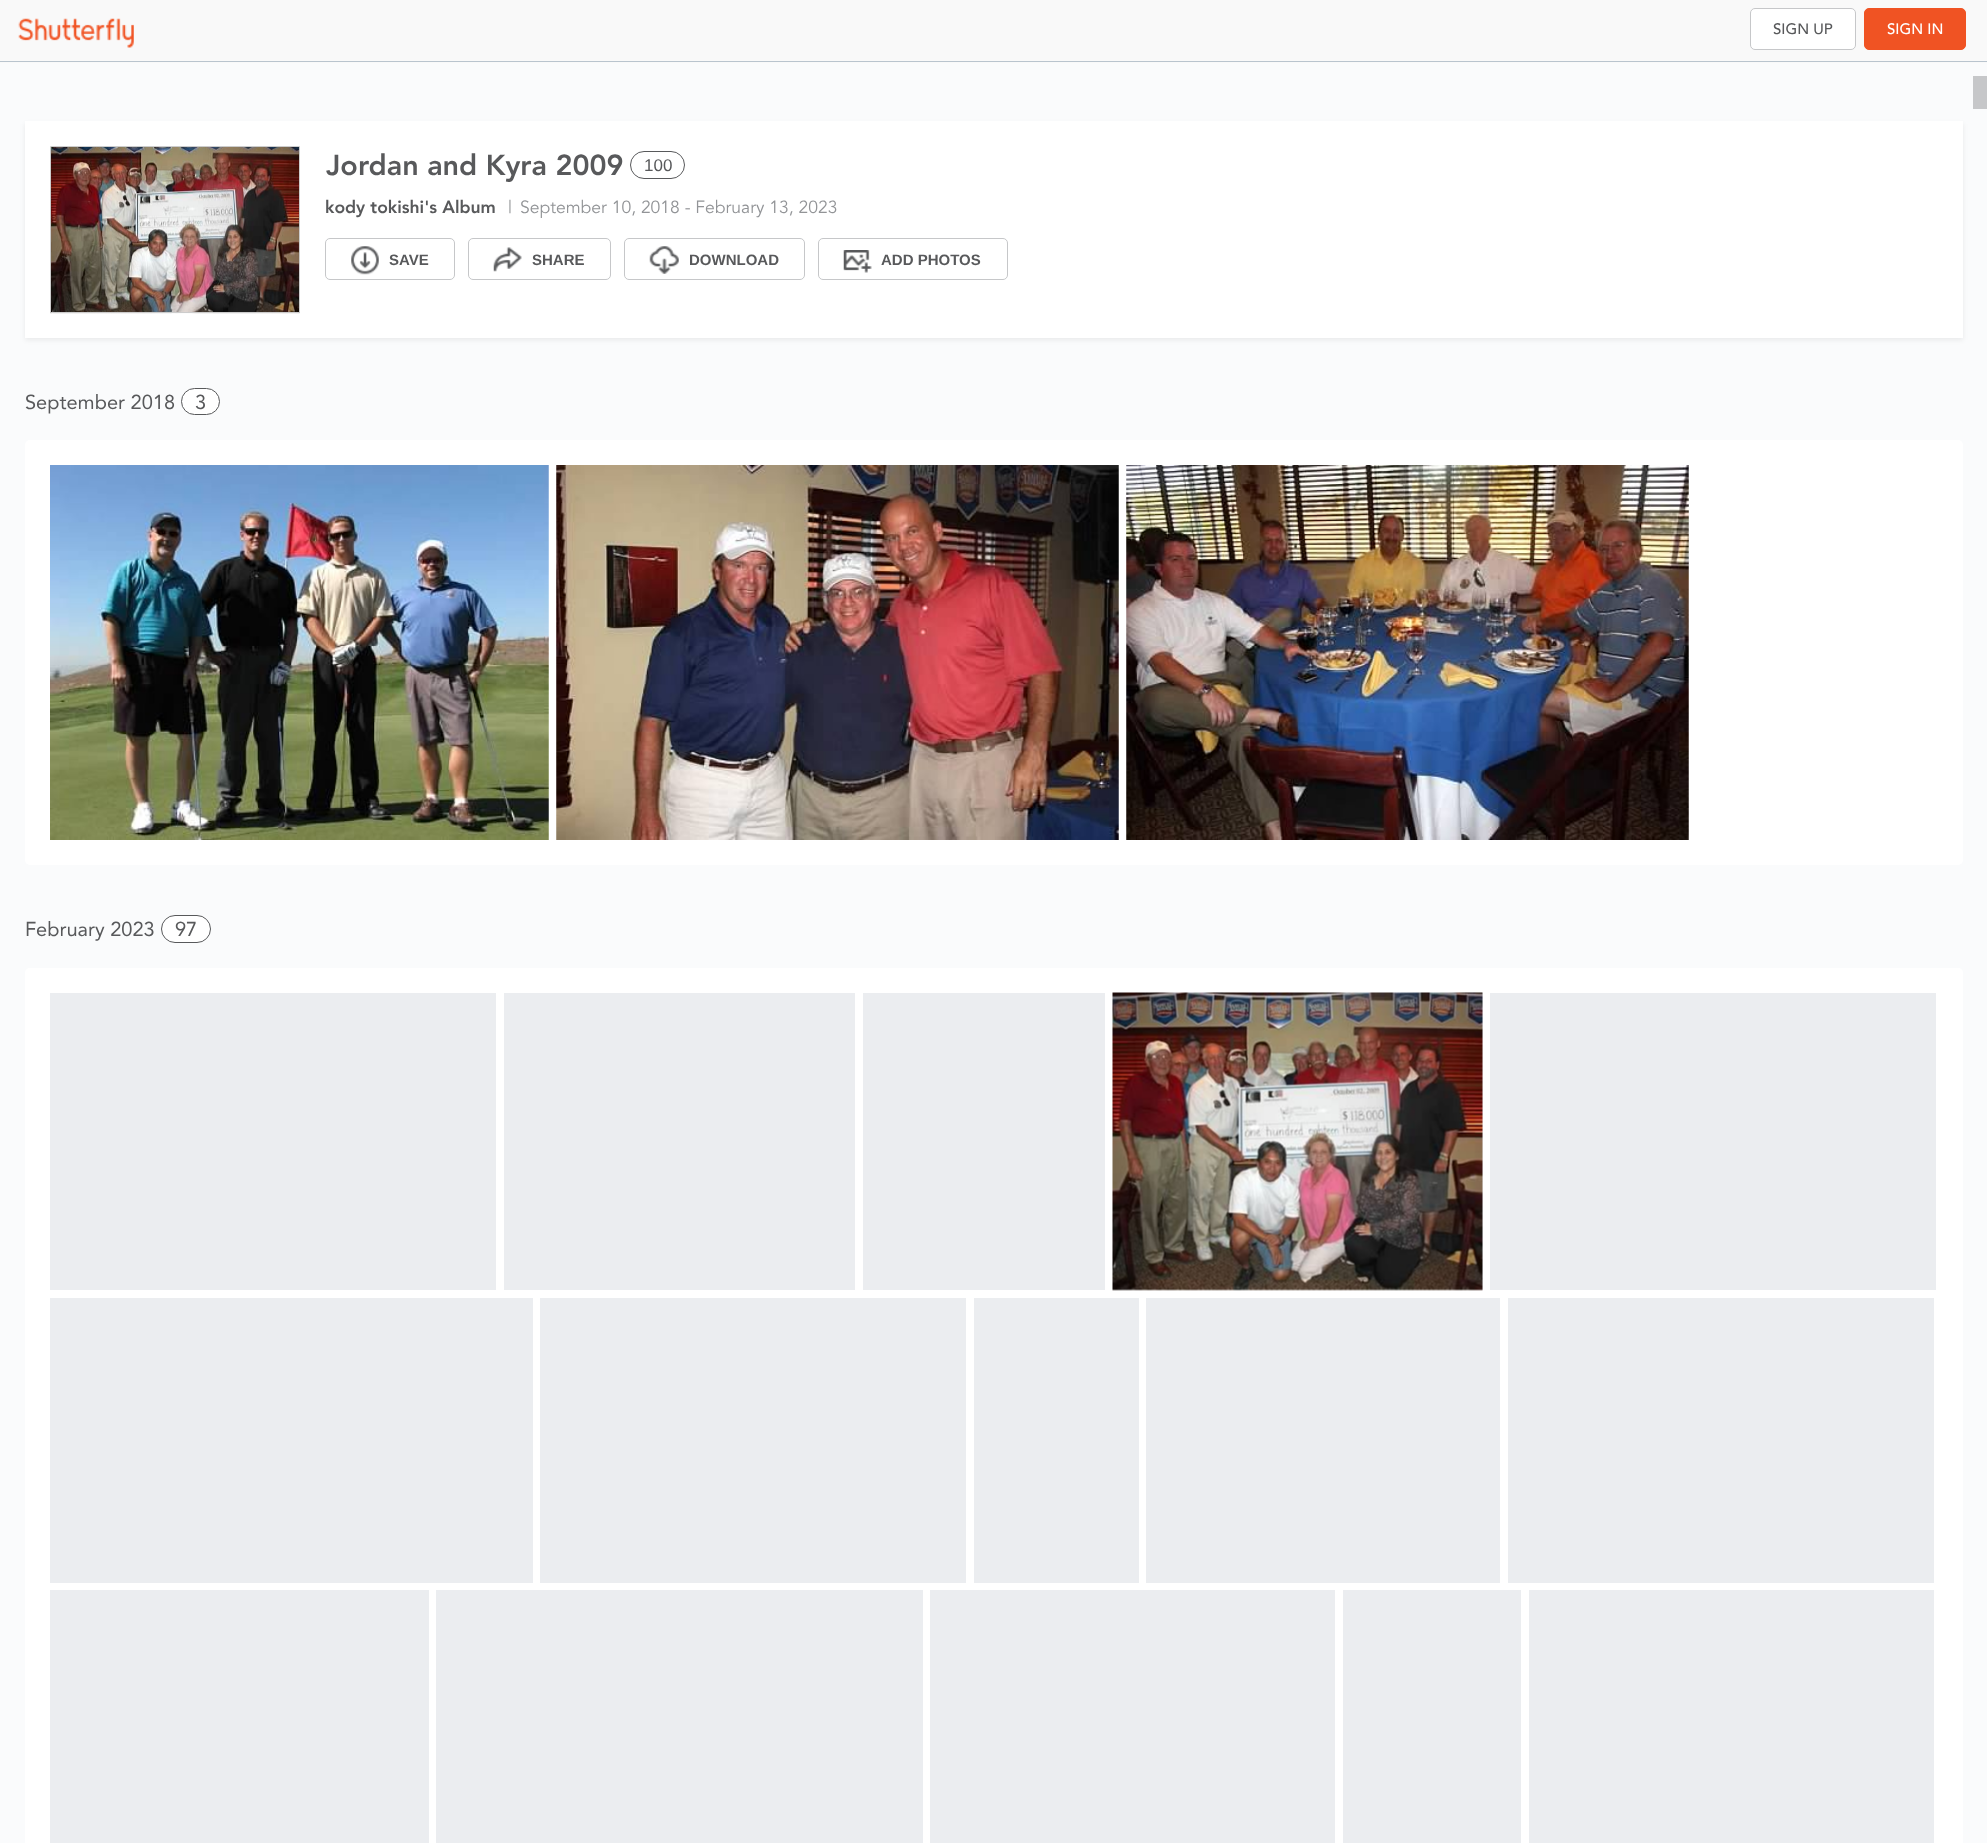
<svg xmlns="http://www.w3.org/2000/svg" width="1987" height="1843">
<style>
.a{font:500 15px Avenir;fill:#58595b}
.b{font:500 15px Avenir;fill:#fff}
.c{font:900 28.75px Avenir;fill:#58595b}
.d{font:17px Liberation Sans;fill:#58595b}
.e{font:900 17.5px Avenir;fill:#58595b}
.f{font:17.5px 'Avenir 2';fill:#929497}
.g{font:bold 15px Liberation Sans;fill:#58595b}
.h{font:20px Avenir;fill:#58595b}
</style>
<rect width="100%" height="100%" fill="#fafbfc"/>
<path fill="#f9f9f9" d="M0 0h1987v63H0z"/>
<path fill="#b9c4ce" d="M0 61h1987v1H0z"/>
<image href="1.png" x="18" y="18" width="116" height="30"/>
<rect fill="#fff" stroke="#c6c7c9" x="1750.5" y="8.5" width="105" height="41" rx="4.5"/>
<rect fill="#f05323" stroke="#f05323" x="1864.5" y="8.5" width="101" height="41" rx="4.5"/>
<path fill="#c6c7c9" d="M1973 76h14v33H1973z"/>
<path fill="#00000012" filter="blur(2.5px)" d="M25 124h1938v216H25z"/>
<path fill="#fff" d="M25 121h1938v217H25z"/>
<image href="2.png" x="50" y="147" width="250" height="167"/>
<path fill="none" stroke="#ccc" d="M50.5 146.5h249v166H50.5z"/>
<rect fill="none" stroke="#58595b" x="630.5" y="151.5" width="54" height="27" rx="13.5"/>
<rect fill="none" stroke="#c6c7c9" x="325.5" y="238.5" width="129" height="41" rx="4.5"/>
<image href="3.png" x="351" y="246" width="28" height="29"/>
<rect fill="none" stroke="#c6c7c9" x="468.5" y="238.5" width="142" height="41" rx="4.5"/>
<image href="4.png" x="493" y="247" width="29" height="25"/>
<rect fill="none" stroke="#c6c7c9" x="624.5" y="238.5" width="180" height="41" rx="4.5"/>
<image href="5.png" x="649" y="246" width="30" height="28"/>
<rect fill="none" stroke="#c6c7c9" x="818.5" y="238.5" width="189" height="41" rx="4.5"/>
<image href="6.png" x="843" y="250" width="29" height="23"/>
<rect fill="#fff" stroke="#58595b" x="181.5" y="388.5" width="38" height="26" rx="13"/>
<rect fill="#fff" x="25" y="440" width="1938" height="425" rx="5"/>
<image href="7.png" x="50" y="465" width="499" height="375"/>
<image href="8.png" x="556" y="465" width="563" height="375"/>
<image href="9.png" x="1126" y="465" width="563" height="375"/>
<rect fill="#fff" stroke="#58595b" x="161.5" y="915.5" width="49" height="27" rx="13.5"/>
<path fill="#fff" d="M30 968h1928c3 0 5 2 5 5v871h-1938v-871c0-3 2-5 5-5z"/>
<path fill="#ebedf0" d="M50 993h446v297H50z"/>
<path fill="#ebedf0" d="M504 993h351v297H504z"/>
<path fill="#ebedf0" d="M863 993h242v297H863z"/>
<path fill="#ebedf0" d="M1113 993h370v297H1113z"/>
<image href="10.png" x="1112" y="992" width="371" height="299"/>
<path fill="#ebedf0" d="M1490 993h446v297H1490z"/>
<path fill="#ebedf0" d="M50 1298h483v285H50z"/>
<path fill="#ebedf0" d="M540 1298h426v285H540z"/>
<path fill="#ebedf0" d="M974 1298h165v285H974z"/>
<path fill="#ebedf0" d="M1146 1298h354v285H1146z"/>
<path fill="#ebedf0" d="M1508 1298h426v285H1508z"/>
<path fill="#ebedf0" d="M50 1590h379v253H50z"/>
<path fill="#ebedf0" d="M436 1590h487v253H436z"/>
<path fill="#ebedf0" d="M930 1590h405v253H930z"/>
<path fill="#ebedf0" d="M1343 1590h178v253H1343z"/>
<path fill="#ebedf0" d="M1529 1590h405v253H1529z"/>
<text class="a" x="1773" y="34">SIGN UP</text>
<text class="b" x="1887" y="34">SIGN IN</text>
<text class="c" x="326" y="175">Jordan and Kyra 2009</text>
<text class="d" x="644" y="171">100</text>
<text class="e" x="325" y="213">kody tokishi's Album</text>
<text class="f" x="508" y="213">|</text>
<text class="f" x="520" y="213">September 10, 2018 - February 13, 2023</text>
<text class="g" x="389" y="265">SAVE</text>
<text class="g" x="532" y="265">SHARE</text>
<text class="g" x="689" y="265">DOWNLOAD</text>
<text class="g" x="881" y="265">ADD PHOTOS</text>
<text class="h" x="25" y="409">September 2018</text>
<text class="h" x="195" y="409">3</text>
<text class="h" x="25" y="936">February 2023</text>
<text class="h" x="175" y="936">97</text>
</svg>
